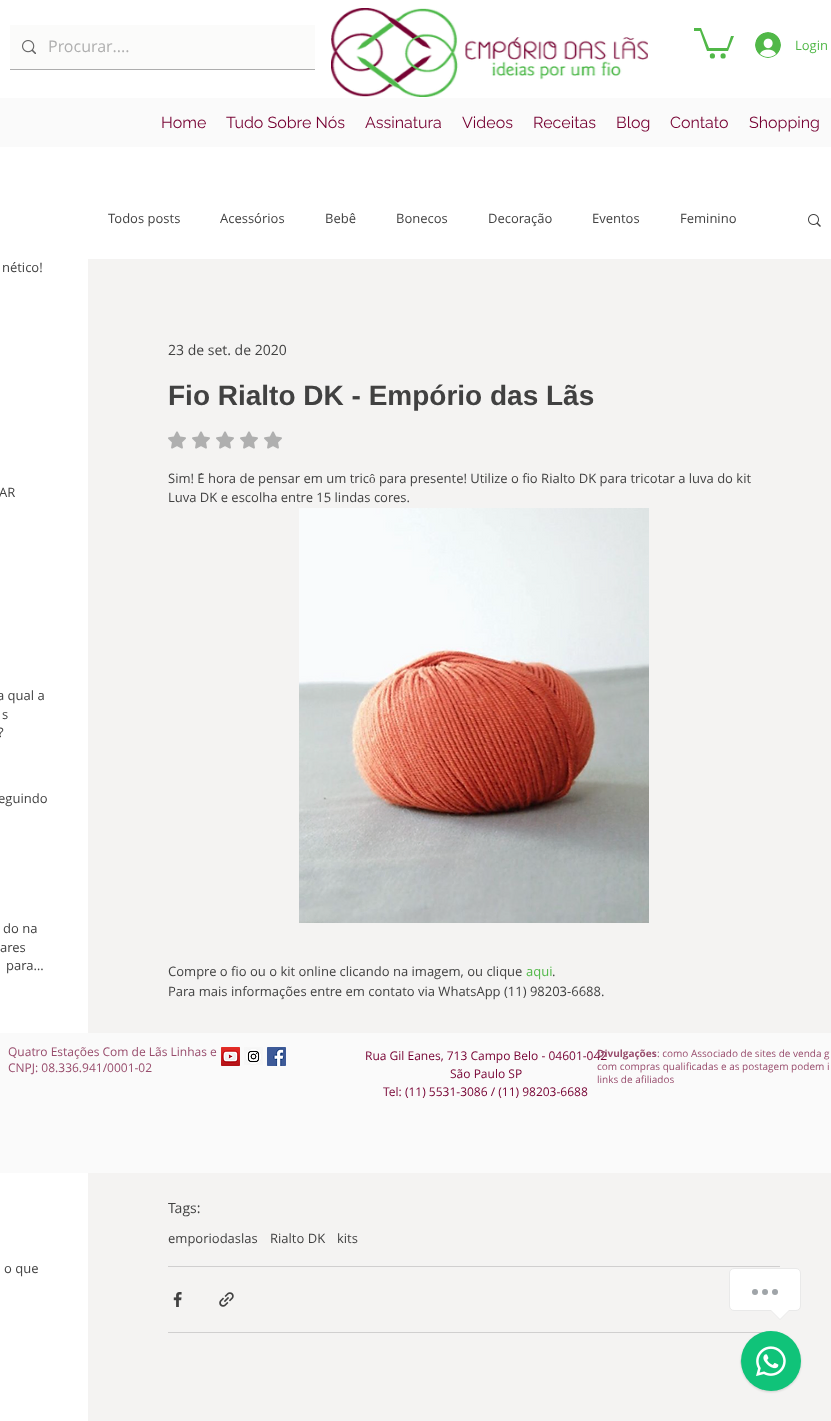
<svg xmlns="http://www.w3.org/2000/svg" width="831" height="1421">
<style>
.a{font:16px Open Sans;fill:#afafaf}
.b{font:13px Open Sans;fill:#51b848}
.c{font:16px Raleway;fill:#760032}
.d{font:13px Open Sans;fill:#414141}
.e{font:14px Open Sans;fill:#414141}
.f{font:bold 28px Liberation Sans;fill:#414141}
.g{font:12px Open Sans;fill:#984c6c}
.h{font:12px Open Sans;fill:#760032}
.i{font:bold 10px Open Sans;fill:#984c6c}
.j{font:10px Open Sans;fill:#984c6c}
</style>
<rect width="100%" height="100%" fill="#fff"/>
<path fill="#adadad" d="M10 69h305v1H10z"/>
<path fill="#fbfbfa" d="M10 25h305v44H10z"/>
<image href="1.png" x="22" y="40" width="14" height="14"/>
<image href="2.png" x="331" y="8" width="317" height="89"/>
<path fill="#51b848" d="M734 36l-6 15h-21l-7-20h-6v-3h7l8 20h18l4-12"/>
<circle fill="#51b848" cx="723.1" cy="55.9" r="2.6"/>
<circle fill="#51b848" cx="712.4" cy="55.9" r="2.6"/>
<image href="3.png" x="755" y="32" width="26" height="26"/>
<path fill="#fafafa" d="M0 98h831v49H0z"/>
<path fill="#f4f3f2" d="M88 259h743v1162H88z"/>
<image href="4.png" x="808" y="214" width="13" height="13"/>
<image href="5.png" x="168" y="431" width="18" height="18"/>
<image href="5.png" x="192" y="431" width="18" height="18"/>
<image href="5.png" x="216" y="431" width="18" height="18"/>
<image href="5.png" x="240" y="431" width="18" height="18"/>
<image href="5.png" x="264" y="431" width="18" height="18"/>
<image href="6.png" x="299" y="508" width="350" height="415"/>
<path fill="#d0cfcf" d="M168 1266h612v1H168z"/>
<image href="7.png" x="173" y="1292" width="9" height="15"/>
<image href="8.png" x="219" y="1292" width="15" height="15"/>
<path fill="#d0cfcf" d="M168 1332h612v1H168z"/>
<rect fill="#dfdedd" x="740" y="1357" width="36" height="10" rx="5"/>
<path fill="#fafafa" d="M0 1033h831v140H0z"/>
<image href="9.png" x="221" y="1047" width="19" height="19"/>
<image href="10.png" x="244" y="1047" width="19" height="18"/>
<image href="11.png" x="267" y="1047" width="19" height="19"/>
<rect fill="#fff" stroke="#e9e9e9" x="729.5" y="1268.5" width="71" height="42" rx="4.5"/>
<circle fill="#9fa4a8" cx="755" cy="1292" r="3"/>
<circle fill="#9fa4a8" cx="765" cy="1292" r="3"/>
<circle fill="#9fa4a8" cx="775" cy="1292" r="3"/>
<path fill="#e9e9e9" d="M770 1310h20l-10 10z"/>
<path fill="#fff" d="M771 1310h18l-9 9z"/>
<rect fill="#00000026" filter="blur(1px)" x="741" y="1332" width="60" height="60" rx="30"/>
<circle fill="#10c379" cx="771" cy="1361" r="30"/>
<image href="12.png" x="756" y="1346" width="30" height="31"/>
<text class="a" x="48" y="52">Procurar....</text>
<text class="b" x="795" y="50">Login</text>
<text class="c" x="161" y="128">Home</text>
<text class="c" x="226" y="128">Tudo Sobre Nós</text>
<text class="c" x="365" y="128">Assinatura</text>
<text class="c" x="462" y="128">Videos</text>
<text class="c" x="533" y="128">Receitas</text>
<text class="c" x="616" y="128">Blog</text>
<text class="c" x="670" y="128">Contato</text>
<text class="c" x="749" y="128">Shopping</text>
<text class="d" x="2" y="272">nético!</text>
<text class="d" x="-1" y="497">AR</text>
<text class="d" x="-3" y="700">a qual a</text>
<text class="d" x="2" y="719">s</text>
<text class="d" x="-2" y="737">?</text>
<text class="d" x="-2" y="803">eguindo</text>
<text class="d" x="3" y="933">do na</text>
<text class="d" x="0" y="952">ares</text>
<text class="d" x="6" y="970">para…</text>
<text class="d" x="4" y="1273">o que</text>
<text class="d" x="108" y="223">Todos posts</text>
<text class="d" x="220" y="223">Acessórios</text>
<text class="d" x="325" y="223">Bebê</text>
<text class="d" x="396" y="223">Bonecos</text>
<text class="d" x="488" y="223">Decoração</text>
<text class="d" x="592" y="223">Eventos</text>
<text class="d" x="680" y="223">Feminino</text>
<text class="e" x="168" y="355">23 de set. de 2020</text>
<text class="f" x="168" y="405">Fio Rialto DK - Empório das Lãs</text>
<text class="d" x="168" y="483">Sim! É hora de pensar em um tricô para presente! Utilize o fio Rialto DK para tricotar a luva do kit</text>
<text class="d" x="168" y="502">Luva DK e escolha entre 15 lindas cores.</text>
<text class="d" x="168" y="976">Compre o fio ou o kit online clicando na imagem, ou clique</text>
<text class="b" x="526" y="976">aqui</text>
<text class="d" x="552" y="976">.</text>
<text class="d" x="168" y="996">Para mais informações entre em contato via WhatsApp (11) 98203-6688.</text>
<text class="e" x="168" y="1213">Tags:</text>
<text class="d" x="168" y="1243">emporiodaslas</text>
<text class="d" x="270" y="1243">Rialto DK</text>
<text class="d" x="337" y="1243">kits</text>
<text class="g" x="8" y="1056">Quatro Estações Com de Lãs Linhas e</text>
<text class="g" x="8" y="1072">CNPJ: 08.336.941/0001-02</text>
<text class="h" x="365" y="1060">Rua Gil Eanes, 713 Campo Belo - 04601-042</text>
<text class="h" x="450" y="1078">São Paulo SP</text>
<text class="h" x="383" y="1096">Tel: (11) 5531-3086 / (11) 98203-6688</text>
<text class="i" x="597" y="1057">Divulgações</text>
<text class="j" x="657" y="1057">: como Associado de sites de venda g</text>
<text class="j" x="597" y="1070">com compras qualificadas e as postagem podem i</text>
<text class="j" x="597" y="1083">links de afiliados</text>
</svg>
